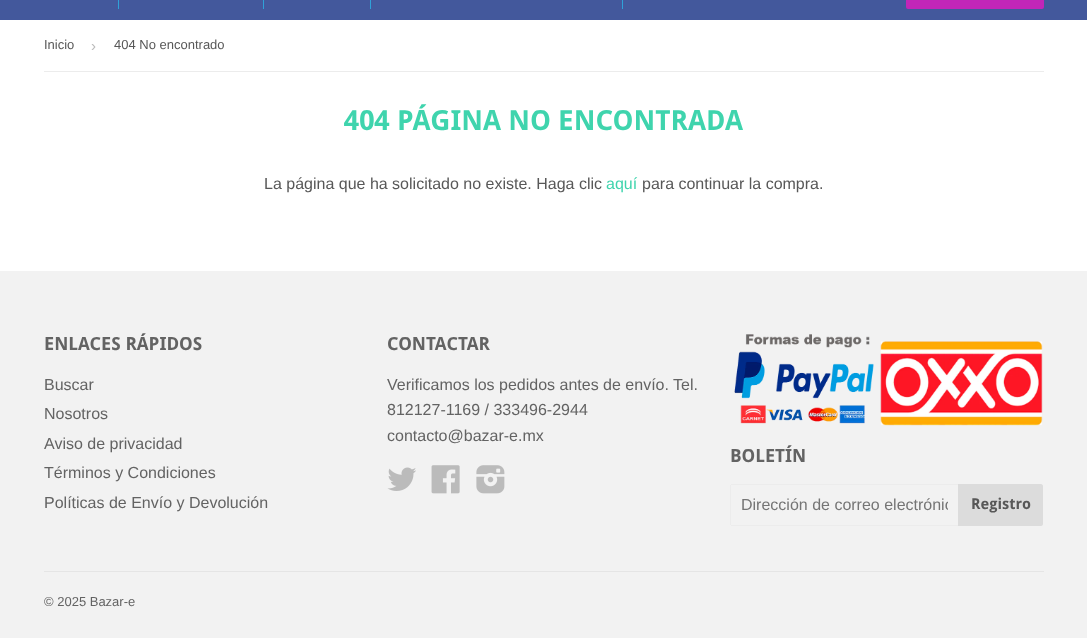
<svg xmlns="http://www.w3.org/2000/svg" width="1087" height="638">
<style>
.a{font:13px Liberation Sans;fill:#585858}
.b{font:15px Liberation Sans;fill:#bbb}
.c{font:bold 27.75px Droid Sans;fill:#3fd4ad}
.d{font:16px Liberation Sans;fill:#585858}
.e{font:16px Liberation Sans;fill:#3fd4ad}
.f{font:bold 18.1px Droid Sans;fill:#636363}
.g{font:16px Liberation Sans;fill:#636363}
.h{font:16px Liberation Sans;fill:#757575}
.i{font:bold 15px Droid Sans;fill:#585858}
.j{font:13px Liberation Sans;fill:#636363}
</style>
<defs>
<clipPath id="clip1"><path d="M741 496h207v18H741z"/></clipPath>
</defs>
<rect width="100%" height="100%" fill="#fff"/>
<path fill="#43589c" d="M0 0h1087v20H0z"/>
<path fill="#2fa1d8" d="M118 0h1v9H118z"/>
<path fill="#2fa1d8" d="M263 0h1v9H263z"/>
<path fill="#2fa1d8" d="M370 0h1v9H370z"/>
<path fill="#2fa1d8" d="M622 0h1v9H622z"/>
<rect fill="#c126b8" x="906" y="-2" width="138" height="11" rx="2"/>
<path fill="#ececec" d="M44 71h1000v1H44z"/>
<path fill="#f2f2f2" d="M0 271h1087v367H0z"/>
<image href="1.png" x="387" y="467" width="29" height="24"/>
<image href="2.png" x="431" y="465" width="29" height="29"/>
<image href="3.png" x="476" y="465" width="29" height="29"/>
<image href="4.png" x="734" y="334" width="309" height="92"/>
<path fill="#ececec" d="M731 484h227v1H731z"/>
<path fill="#ececec" d="M731 525h227v1H731z"/>
<path fill="#ececec" d="M730 485h1v40H730z"/>
<path fill="#dcdcdc" d="M958 484h83c1 0 2 1 2 2v38c0 1-1 2-2 2h-83z"/>
<path fill="#e5e5e5" d="M44 571h1000v1H44z"/>
<text class="a" x="44" y="49">Inicio</text>
<text class="b" x="91" y="51">›</text>
<text class="a" x="114" y="49">404 No encontrado</text>
<text class="c" x="344" y="130">404 PÁGINA NO ENCONTRADA</text>
<text class="d" x="264" y="189">La página que ha solicitado no existe. Haga clic</text>
<text class="e" x="606" y="189">aquí</text>
<text class="d" x="642" y="189">para continuar la compra.</text>
<text class="f" x="44" y="350">ENLACES RÁPIDOS</text>
<text class="g" x="44" y="390">Buscar</text>
<text class="g" x="44" y="419">Nosotros</text>
<text class="g" x="44" y="449">Aviso de privacidad</text>
<text class="g" x="44" y="478">Términos y Condiciones</text>
<text class="g" x="44" y="508">Políticas de Envío y Devolución</text>
<text class="f" x="387" y="350">CONTACTAR</text>
<text class="g" x="387" y="390">Verificamos los pedidos antes de envío. Tel.</text>
<text class="g" x="387" y="415">812127-1169 / 333496-2944</text>
<text class="g" x="387" y="441">contacto@bazar-e.mx</text>
<text class="f" x="730" y="462">BOLETÍN</text>
<g clip-path="url(#clip1)">
<text class="h" x="741" y="510">Dirección de correo electrónic</text>
</g>
<text class="i" x="971" y="509">Registro</text>
<text class="j" x="44" y="606">© 2025 Bazar-e</text>
</svg>
